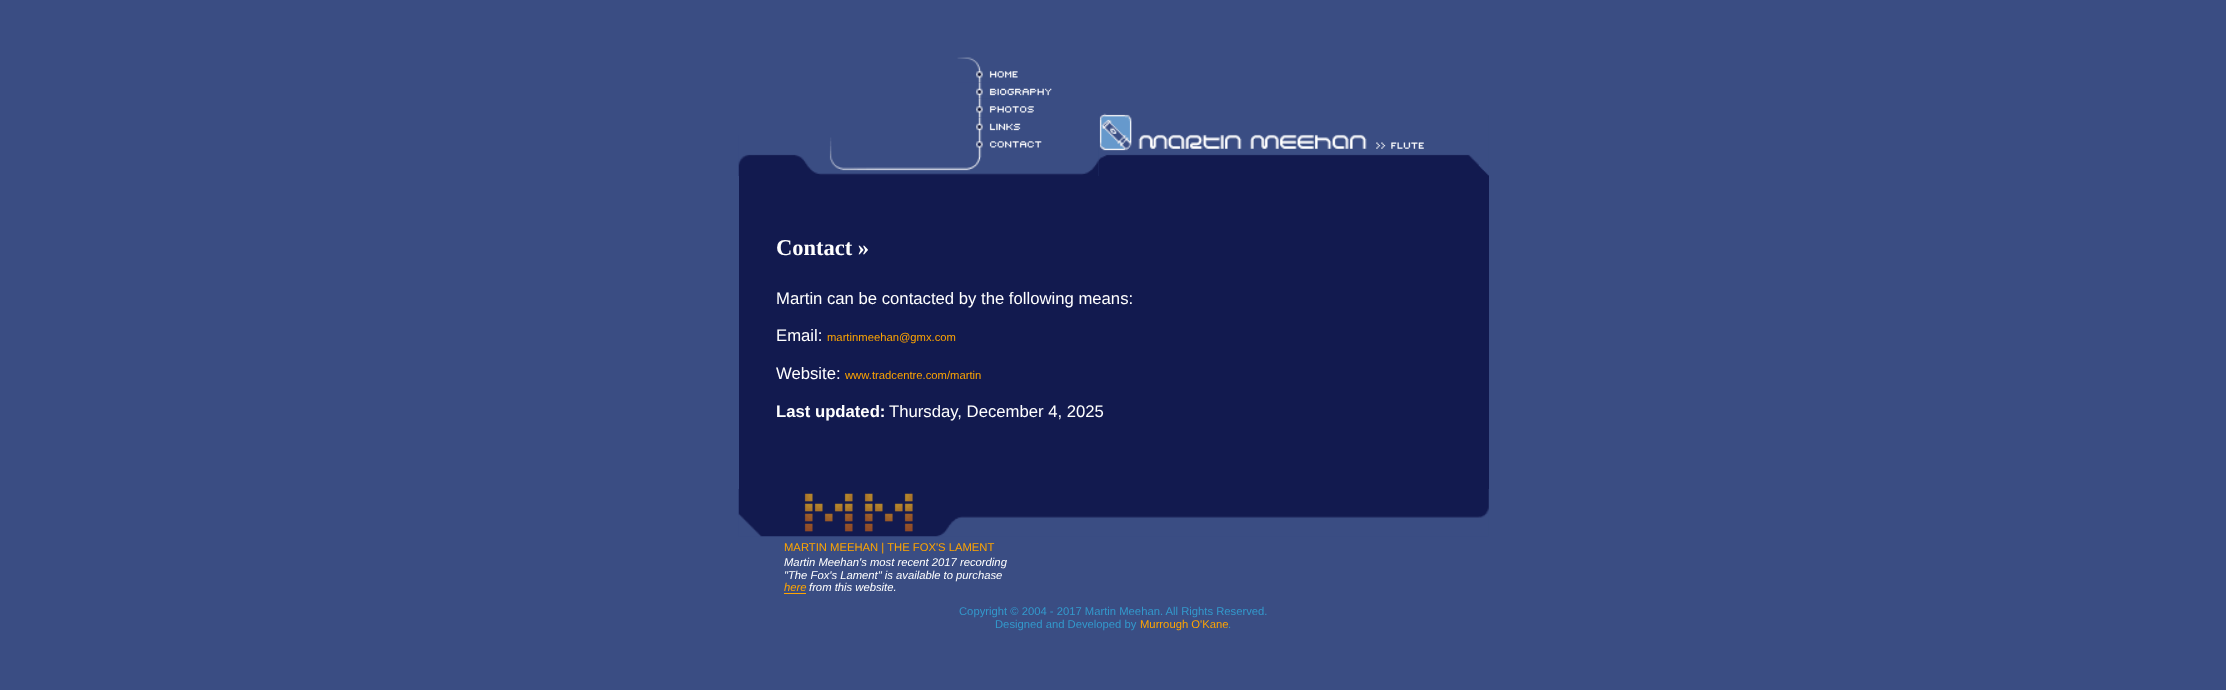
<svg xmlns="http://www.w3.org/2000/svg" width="2226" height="690">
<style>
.a{font:bold 22.5px Liberation Serif;fill:#fff}
.b{font:16.7px Liberation Sans;fill:#fff}
.c{font:11.25px Liberation Sans;fill:#ffa500}
.d{font:bold 16.7px Liberation Sans;fill:#fff}
.e{font:italic 11.25px Liberation Sans;fill:#fff}
.f{font:italic 11.25px Liberation Sans;fill:#ffa500}
.g{font:11.25px Liberation Sans;fill:#39c}
</style>
<rect width="100%" height="100%" fill="#3a4d83"/>
<image href="1.png" x="957" y="57" width="61" height="26"/>
<image href="2.png" x="976" y="82" width="76" height="17"/>
<image href="3.png" x="976" y="98" width="58" height="20"/>
<image href="4.png" x="976" y="117" width="45" height="18"/>
<image href="5.png" x="738" y="135" width="361" height="41"/>
<image href="6.png" x="1098" y="113" width="391" height="63"/>
<path fill="#121a4f" d="M739 176h750v313H739z"/>
<image href="7.png" x="738" y="489" width="751" height="48"/>
<path fill="#ffa500" d="M784 593h22v1H784z"/>
<text class="a" x="776" y="255">Contact »</text>
<text class="b" x="776" y="304">Martin can be contacted by the following means:</text>
<text class="b" x="776" y="341">Email:</text>
<text class="c" x="827" y="341">martinmeehan@gmx.com</text>
<text class="b" x="776" y="379">Website:</text>
<text class="c" x="845" y="379">www.tradcentre.com/martin</text>
<text class="d" x="776" y="417">Last updated:</text>
<text class="b" x="889" y="417">Thursday, December 4, 2025</text>
<text class="c" x="784" y="551">MARTIN MEEHAN | THE FOX'S LAMENT</text>
<text class="e" x="784" y="566">Martin Meehan's most recent 2017 recording</text>
<text class="e" x="784" y="579">"The Fox's Lament" is available to purchase</text>
<text class="f" x="784" y="591">here</text>
<text class="e" x="809" y="591">from this website.</text>
<text class="g" x="959" y="615">Copyright © 2004 - 2017 Martin Meehan. All Rights Reserved.</text>
<text class="g" x="995" y="628">Designed and Developed by</text>
<text class="c" x="1140" y="628">Murrough O'Kane</text>
<text class="g" x="1228" y="628">.</text>
</svg>
